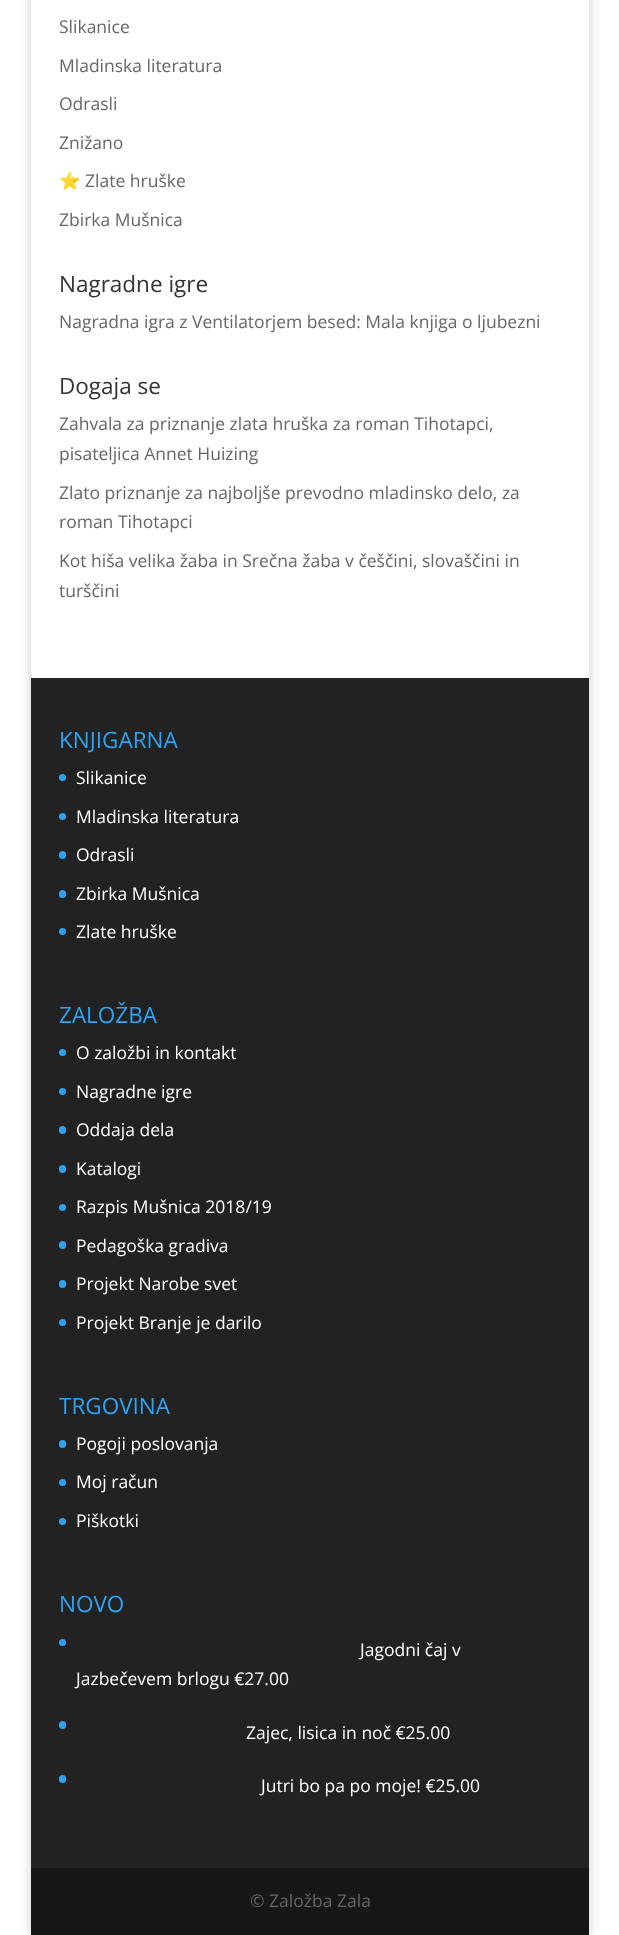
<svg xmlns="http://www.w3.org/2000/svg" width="619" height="1935">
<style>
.a{font:17.5px Open Sans;fill:#666}
.b{font:17.5px Noto Color Emoji;fill:#666}
.c{font:22.5px Open Sans;fill:#333}
.d{font:22.5px Open Sans;fill:#2ea3f2}
.e{font:17.5px Open Sans;fill:#fff}
</style>
<rect width="100%" height="100%" fill="#fff"/>
<path fill="#00000033" filter="blur(6px)" d="M31 -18h558v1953H31z"/>
<path fill="#fff" d="M31 0h558v678H31z"/>
<path fill="#222" d="M31 678h558v1190H31z"/>
<circle fill="#2ea3f2" cx="62.5" cy="777.5" r="3.5"/>
<circle fill="#2ea3f2" cx="62.5" cy="816.5" r="3.5"/>
<rect fill="#2ea3f2" x="59" y="851" width="7" height="8" rx="3.5"/>
<rect fill="#2ea3f2" x="59" y="890" width="7" height="8" rx="3.5"/>
<circle fill="#2ea3f2" cx="62.5" cy="931.5" r="3.5"/>
<circle fill="#2ea3f2" cx="62.5" cy="1052.5" r="3.5"/>
<circle fill="#2ea3f2" cx="62.5" cy="1091.5" r="3.5"/>
<rect fill="#2ea3f2" x="59" y="1126" width="7" height="8" rx="3.5"/>
<rect fill="#2ea3f2" x="59" y="1165" width="7" height="8" rx="3.5"/>
<circle fill="#2ea3f2" cx="62.5" cy="1207.5" r="3.5"/>
<rect fill="#2ea3f2" x="59" y="1241" width="7" height="8" rx="3.5"/>
<rect fill="#2ea3f2" x="59" y="1280" width="7" height="8" rx="3.5"/>
<circle fill="#2ea3f2" cx="62.5" cy="1322.5" r="3.5"/>
<rect fill="#2ea3f2" x="59" y="1440" width="7" height="8" rx="3.5"/>
<circle fill="#2ea3f2" cx="62.5" cy="1482.5" r="3.5"/>
<circle fill="#2ea3f2" cx="62.5" cy="1521.5" r="3.5"/>
<circle fill="#2ea3f2" cx="62.5" cy="1642.5" r="3.5"/>
<rect fill="#2ea3f2" x="59" y="1721" width="7" height="8" rx="3.5"/>
<rect fill="#2ea3f2" x="59" y="1775" width="7" height="8" rx="3.5"/>
<path fill="#171717" d="M31 1868h558v67H31z"/>
<text class="a" x="59" y="33">Slikanice</text>
<text class="a" x="59" y="72">Mladinska literatura</text>
<text class="a" x="59" y="110">Odrasli</text>
<text class="a" x="59" y="149">Znižano</text>
<text class="b" x="59" y="187">⭐</text>
<text class="a" x="85" y="187">Zlate hruške</text>
<text class="a" x="59" y="226">Zbirka Mušnica</text>
<text class="c" x="59" y="292">Nagradne igre</text>
<text class="a" x="59" y="328">Nagradna igra z Ventilatorjem besed: Mala knjiga o ljubezni</text>
<text class="c" x="59" y="394">Dogaja se</text>
<text class="a" x="59" y="430">Zahvala za priznanje zlata hruška za roman Tihotapci,</text>
<text class="a" x="59" y="460">pisateljica Annet Huizing</text>
<text class="a" x="59" y="499">Zlato priznanje za najboljše prevodno mladinsko delo, za</text>
<text class="a" x="59" y="528">roman Tihotapci</text>
<text class="a" x="59" y="567">Kot hiša velika žaba in Srečna žaba v češčini, slovaščini in</text>
<text class="a" x="59" y="597">turščini</text>
<text class="d" x="59" y="748">KNJIGARNA</text>
<text class="e" x="76" y="784">Slikanice</text>
<text class="e" x="76" y="823">Mladinska literatura</text>
<text class="e" x="76" y="861">Odrasli</text>
<text class="e" x="76" y="900">Zbirka Mušnica</text>
<text class="e" x="76" y="938">Zlate hruške</text>
<text class="d" x="59" y="1023">ZALOŽBA</text>
<text class="e" x="76" y="1059">O založbi in kontakt</text>
<text class="e" x="76" y="1098">Nagradne igre</text>
<text class="e" x="76" y="1136">Oddaja dela</text>
<text class="e" x="76" y="1175">Katalogi</text>
<text class="e" x="76" y="1213">Razpis Mušnica 2018/19</text>
<text class="e" x="76" y="1252">Pedagoška gradiva</text>
<text class="e" x="76" y="1290">Projekt Narobe svet</text>
<text class="e" x="76" y="1329">Projekt Branje je darilo</text>
<text class="d" x="59" y="1414">TRGOVINA</text>
<text class="e" x="76" y="1450">Pogoji poslovanja</text>
<text class="e" x="76" y="1488">Moj račun</text>
<text class="e" x="76" y="1527">Piškotki</text>
<text class="d" x="59" y="1612">NOVO</text>
<text class="e" x="360" y="1656">Jagodni čaj v</text>
<text class="e" x="76" y="1685">Jazbečevem brlogu €27.00</text>
<text class="e" x="246" y="1739">Zajec, lisica in noč €25.00</text>
<text class="e" x="261" y="1792">Jutri bo pa po moje! €25.00</text>
<text class="a" x="250" y="1907">© Založba Zala</text>
</svg>
